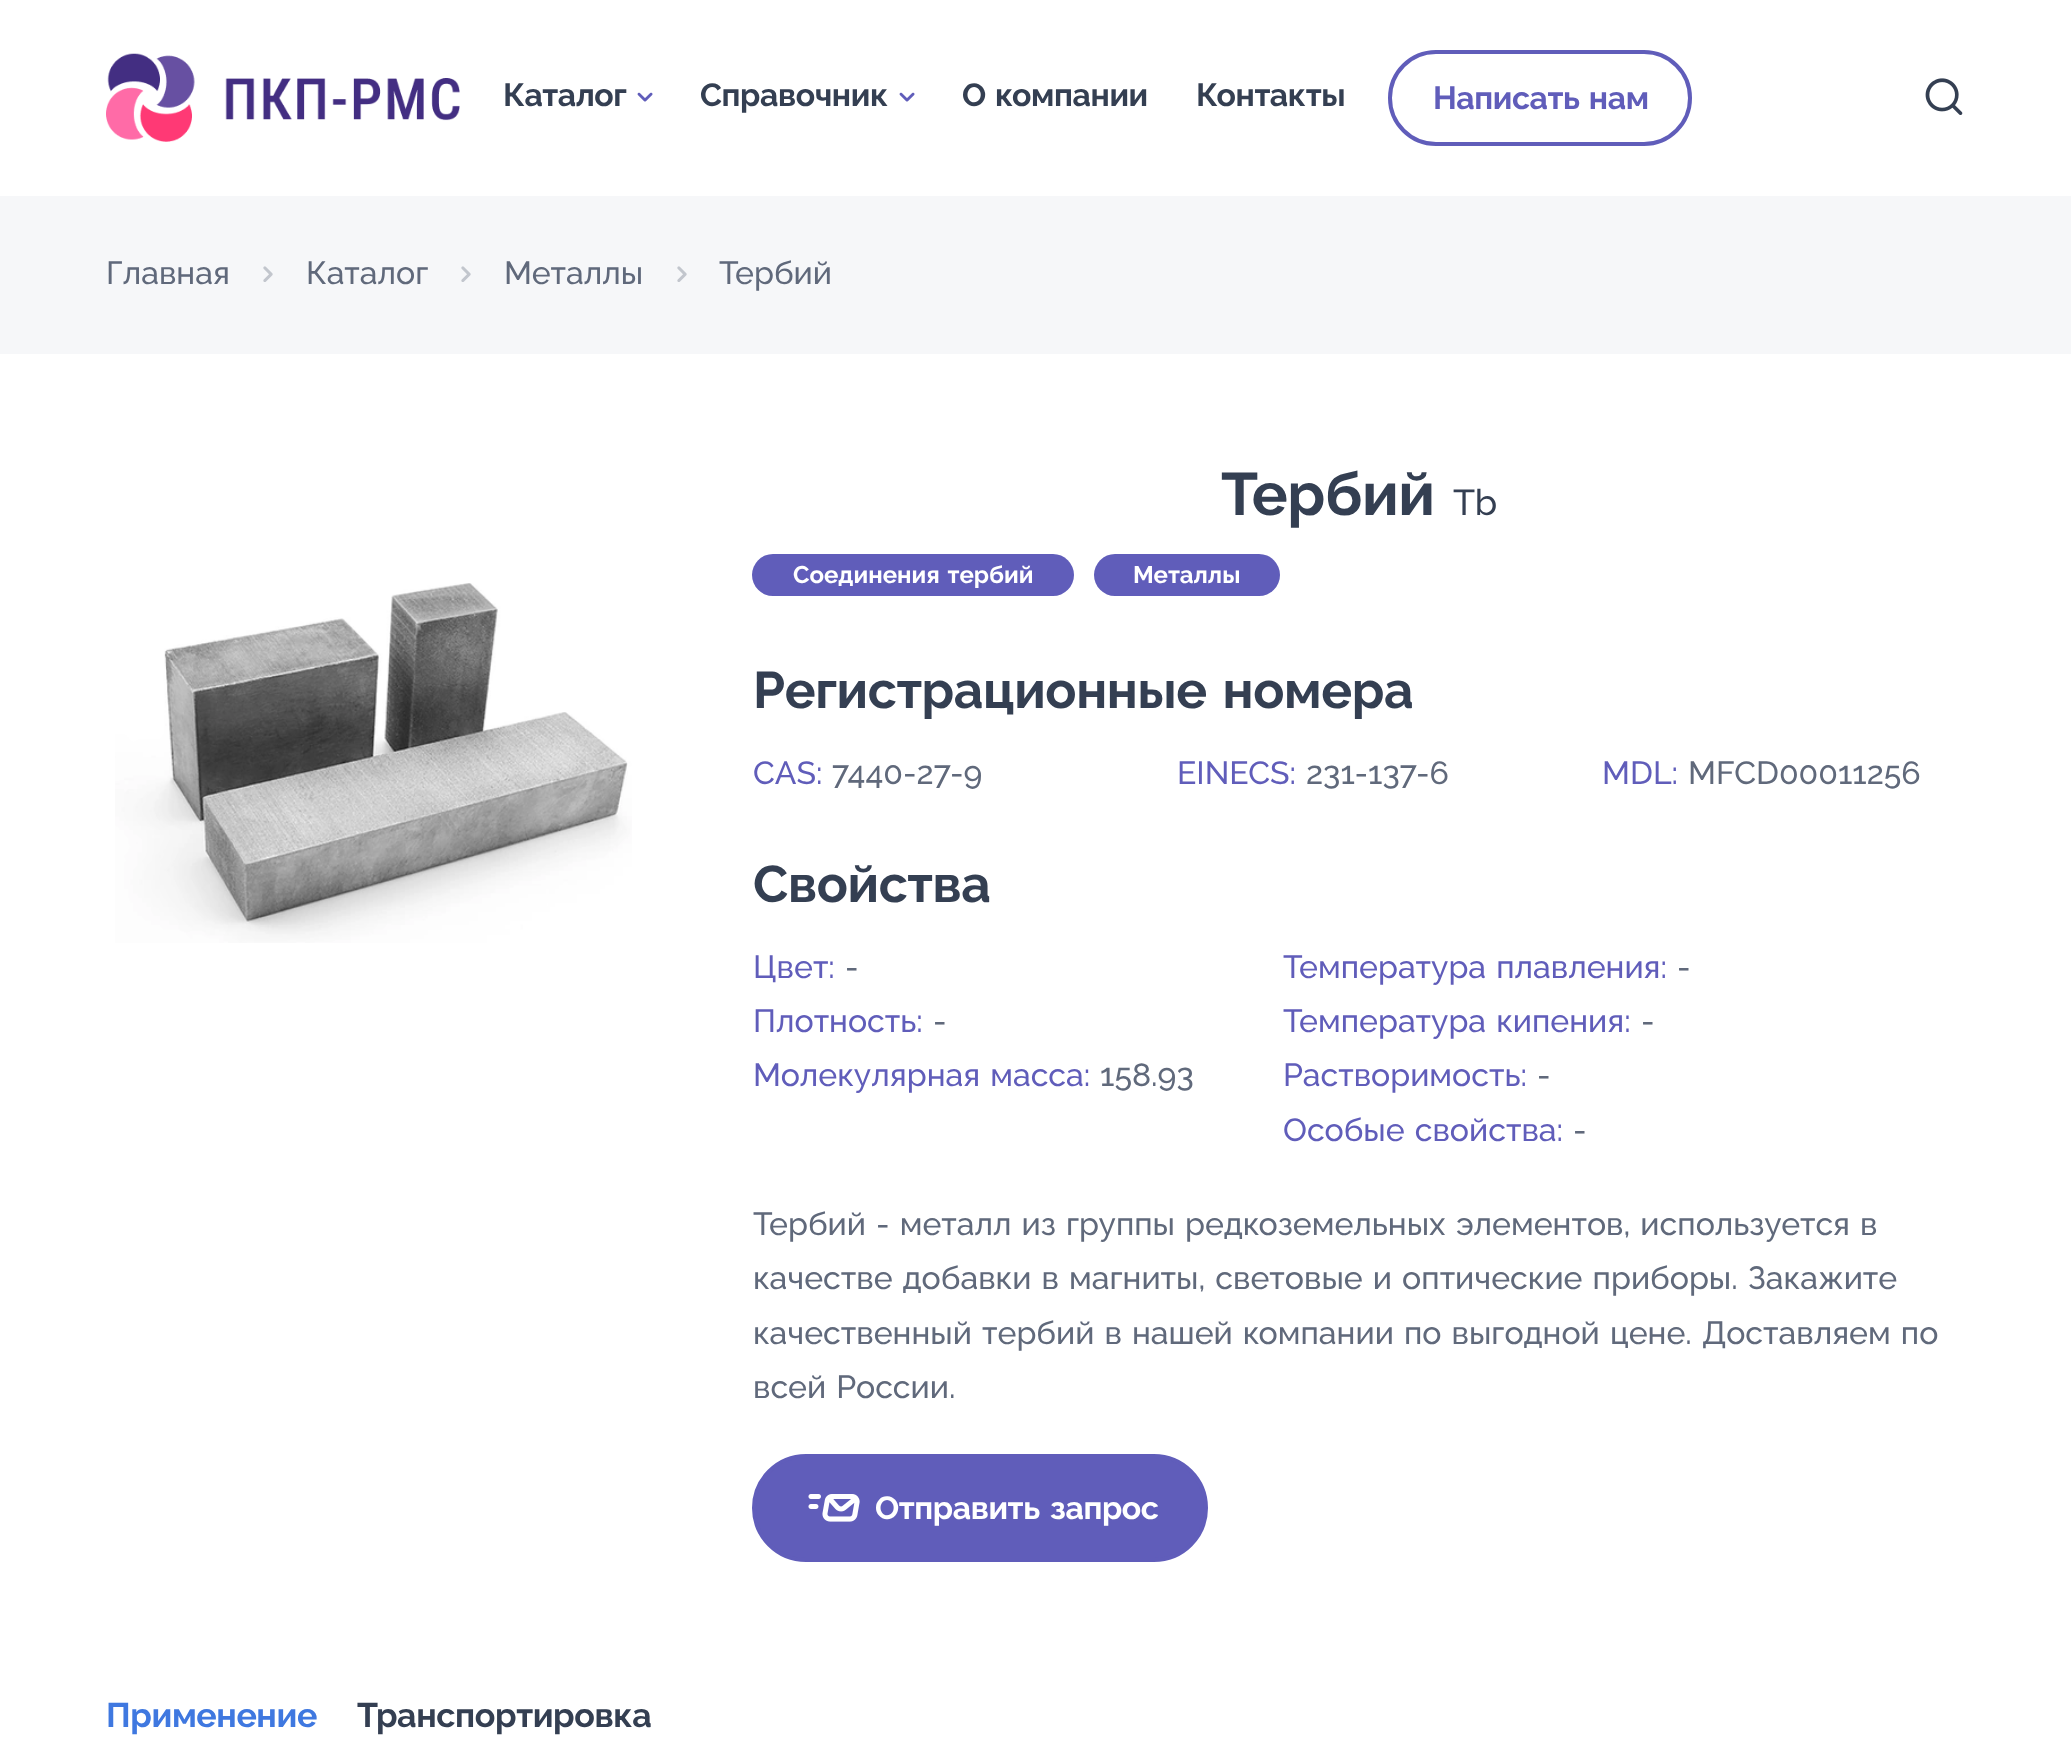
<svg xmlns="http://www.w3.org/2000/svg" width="2071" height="1745">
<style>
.a{font:bold 32px Raleway;letter-spacing:-0.4px;fill:#343f52}
.b{font:bold 32px Raleway;letter-spacing:-0.4px;fill:#605dba}
.c{font:500 32px Raleway;fill:#60697b}
.d{font:bold 60px Raleway;letter-spacing:-0.4px;fill:#343f52}
.e{font:500 36px Raleway;letter-spacing:-0.4px;fill:#343f52}
.f{font:bold 24px Raleway;fill:#fff}
.g{font:bold 51.5px Raleway;letter-spacing:-0.4px;fill:#343f52}
.h{font:500 32px Raleway;fill:#605dba}
.i{font:bold 32px Raleway;letter-spacing:-0.4px;fill:#fff}
.j{font:bold 34px Raleway;letter-spacing:-0.4px;fill:#3f78e0}
.k{font:bold 34px Raleway;letter-spacing:-0.4px;fill:#343f52}
</style>
<rect width="100%" height="100%" fill="#fff"/>
<image href="1.png" x="106" y="53" width="354" height="89"/>
<image href="2.png" x="637" y="92" width="16" height="10"/>
<image href="2.png" x="899" y="92" width="16" height="10"/>
<rect fill="none" stroke="#605dba" stroke-width="4" x="1390" y="52" width="300" height="92" rx="46"/>
<image href="3.png" x="1925" y="78" width="38" height="37"/>
<path fill="#f6f7f9" d="M0 196h2071v158H0z"/>
<image href="4.png" x="263" y="266" width="10" height="16"/>
<image href="4.png" x="461" y="266" width="10" height="16"/>
<image href="4.png" x="677" y="266" width="10" height="16"/>
<image href="5.png" x="115" y="583" width="517" height="360"/>
<rect fill="#605dba" x="752" y="554" width="322" height="42" rx="21"/>
<rect fill="#605dba" x="1094" y="554" width="186" height="42" rx="21"/>
<rect fill="#605dba" stroke="#605dba" stroke-width="4" x="754" y="1456" width="452" height="104" rx="52"/>
<image href="6.png" x="808" y="1494" width="52" height="28"/>
<text class="a" x="503" y="106">Каталог</text>
<text class="a" x="700" y="106">Справочник</text>
<text class="a" x="962" y="106" word-spacing="2">О компании</text>
<text class="a" x="1196" y="106">Контакты</text>
<text class="b" x="1433" y="109" word-spacing="2">Написать нам</text>
<text class="c" x="106" y="284">Главная</text>
<text class="c" x="306" y="284">Каталог</text>
<text class="c" x="504" y="284">Металлы</text>
<text class="c" x="719" y="284">Тербий</text>
<text class="d" x="1221" y="515">Тербий</text>
<text class="e" x="1453" y="515">Tb</text>
<text class="f" x="793" y="583" word-spacing="2">Соединения тербий</text>
<text class="f" x="1133" y="583">Металлы</text>
<text class="g" x="753" y="708" word-spacing="4">Регистрационные номера</text>
<text class="h" x="753" y="784">CAS:</text>
<text class="c" x="832" y="784">7440-27-9</text>
<text class="h" x="1177" y="784">EINECS:</text>
<text class="c" x="1306" y="784">231-137-6</text>
<text class="h" x="1602" y="784">MDL:</text>
<text class="c" x="1688" y="784">MFCD00011256</text>
<text class="g" x="753" y="902">Свойства</text>
<text class="h" x="753" y="978">Цвет:</text>
<text class="c" x="845" y="978">-</text>
<text class="h" x="1283" y="978" word-spacing="2">Температура плавления:</text>
<text class="c" x="1677" y="978">-</text>
<text class="h" x="753" y="1032">Плотность:</text>
<text class="c" x="933" y="1032">-</text>
<text class="h" x="1283" y="1032" word-spacing="2">Температура кипения:</text>
<text class="c" x="1641" y="1032">-</text>
<text class="h" x="753" y="1086" word-spacing="2">Молекулярная масса:</text>
<text class="c" x="1100" y="1086">158.93</text>
<text class="h" x="1283" y="1086">Растворимость:</text>
<text class="c" x="1537" y="1086">-</text>
<text class="h" x="1283" y="1141" word-spacing="2">Особые свойства:</text>
<text class="c" x="1573" y="1141">-</text>
<text class="c" x="753" y="1235" word-spacing="2">Тербий - металл из группы редкоземельных элементов, используется в</text>
<text class="c" x="753" y="1289" word-spacing="2">качестве добавки в магниты, световые и оптические приборы. Закажите</text>
<text class="c" x="753" y="1344" word-spacing="2">качественный тербий в нашей компании по выгодной цене. Доставляем по</text>
<text class="c" x="753" y="1398" word-spacing="2">всей России.</text>
<text class="i" x="875" y="1519" word-spacing="3">Отправить запрос</text>
<text class="j" x="106" y="1727">Применение</text>
<text class="k" x="357" y="1727">Транспортировка</text>
</svg>
